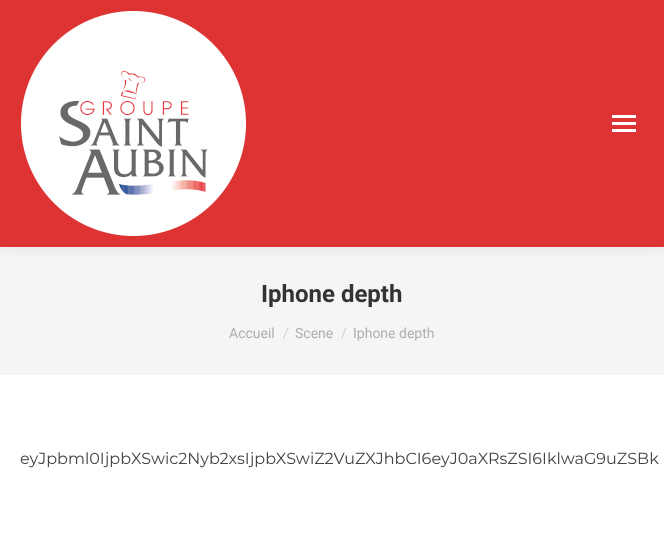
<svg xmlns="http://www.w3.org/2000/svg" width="664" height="543">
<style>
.a{font:bold 24px Roboto;fill:#333}
.b{font:14px Roboto;fill:#adafb3}
.c{font:14px Roboto;fill:#d1d2d4}
.d{font:16px Montserrat;fill:#444}
</style>
<rect width="100%" height="100%" fill="#fff"/>
<path fill="#f5f5f5" d="M0 247h664v128H0z"/>
<path fill="#00000012" filter="blur(7.5px)" d="M-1 -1h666v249H-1z"/>
<path fill="#d33" d="M0 0h664v247H0z"/>
<image href="1.png" x="21" y="11" width="225" height="225"/>
<path fill="#fff" d="M612 115h24v3H612z"/>
<path fill="#fff" d="M612 122h24v3H612z"/>
<path fill="#fff" d="M612 129h24v3H612z"/>
<text class="a" x="261" y="302">Iphone depth</text>
<text class="b" x="229" y="338">Accueil</text>
<text class="c" x="283" y="338">/</text>
<text class="b" x="295" y="338">Scene</text>
<text class="c" x="341" y="338">/</text>
<text class="b" x="353" y="338">Iphone depth</text>
<text class="d" x="20" y="464">eyJpbml0IjpbXSwic2Nyb2xsIjpbXSwiZ2VuZXJhbCI6eyJ0aXRsZSI6IklwaG9uZSBk</text>
</svg>
